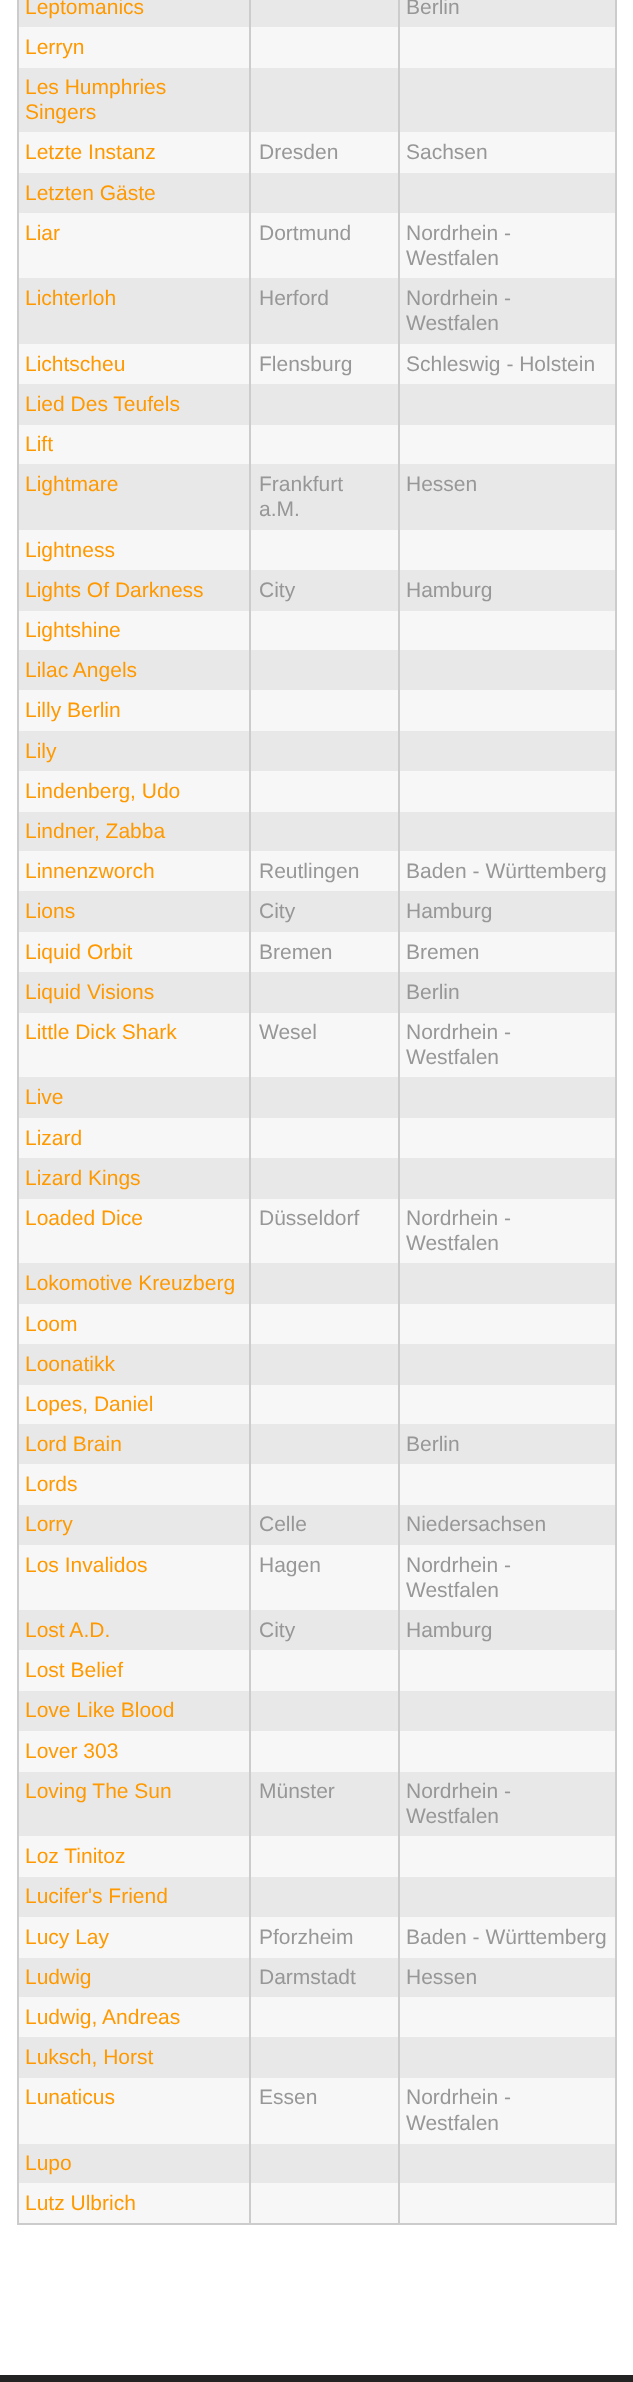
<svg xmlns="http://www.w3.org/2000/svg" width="633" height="2382">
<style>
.a{font:21px Liberation Sans;fill:#f90}
.b{font:21px Liberation Sans;fill:#979797}
</style>
<rect width="100%" height="100%" fill="#232323"/>
<path fill="#fff" d="M0 0h633v2375H0z"/>
<path fill="#ccc" d="M615 0h2v2225H615z"/>
<path fill="#ccc" d="M17 2223h600v2H17z"/>
<path fill="#ccc" d="M17 0h2v2225H17z"/>
<path fill="#e8e8e8" d="M19 0h596v27H19z"/>
<path fill="#f7f7f7" d="M19 27h596v41H19z"/>
<path fill="#e8e8e8" d="M19 68h596v64H19z"/>
<path fill="#f7f7f7" d="M19 132h596v41H19z"/>
<path fill="#e8e8e8" d="M19 173h596v40H19z"/>
<path fill="#f7f7f7" d="M19 213h596v65H19z"/>
<path fill="#e8e8e8" d="M19 278h596v66H19z"/>
<path fill="#f7f7f7" d="M19 344h596v40H19z"/>
<path fill="#e8e8e8" d="M19 384h596v41H19z"/>
<path fill="#f7f7f7" d="M19 425h596v39H19z"/>
<path fill="#e8e8e8" d="M19 464h596v66H19z"/>
<path fill="#f7f7f7" d="M19 530h596v40H19z"/>
<path fill="#e8e8e8" d="M19 570h596v41H19z"/>
<path fill="#f7f7f7" d="M19 611h596v39H19z"/>
<path fill="#e8e8e8" d="M19 650h596v40H19z"/>
<path fill="#f7f7f7" d="M19 690h596v41H19z"/>
<path fill="#e8e8e8" d="M19 731h596v40H19z"/>
<path fill="#f7f7f7" d="M19 771h596v41H19z"/>
<path fill="#e8e8e8" d="M19 812h596v39H19z"/>
<path fill="#f7f7f7" d="M19 851h596v40H19z"/>
<path fill="#e8e8e8" d="M19 891h596v41H19z"/>
<path fill="#f7f7f7" d="M19 932h596v40H19z"/>
<path fill="#e8e8e8" d="M19 972h596v41H19z"/>
<path fill="#f7f7f7" d="M19 1013h596v64H19z"/>
<path fill="#e8e8e8" d="M19 1077h596v41H19z"/>
<path fill="#f7f7f7" d="M19 1118h596v40H19z"/>
<path fill="#e8e8e8" d="M19 1158h596v41H19z"/>
<path fill="#f7f7f7" d="M19 1199h596v64H19z"/>
<path fill="#e8e8e8" d="M19 1263h596v41H19z"/>
<path fill="#f7f7f7" d="M19 1304h596v40H19z"/>
<path fill="#e8e8e8" d="M19 1344h596v41H19z"/>
<path fill="#f7f7f7" d="M19 1385h596v39H19z"/>
<path fill="#e8e8e8" d="M19 1424h596v40H19z"/>
<path fill="#f7f7f7" d="M19 1464h596v41H19z"/>
<path fill="#e8e8e8" d="M19 1505h596v40H19z"/>
<path fill="#f7f7f7" d="M19 1545h596v65H19z"/>
<path fill="#e8e8e8" d="M19 1610h596v40H19z"/>
<path fill="#f7f7f7" d="M19 1650h596v41H19z"/>
<path fill="#e8e8e8" d="M19 1691h596v40H19z"/>
<path fill="#f7f7f7" d="M19 1731h596v41H19z"/>
<path fill="#e8e8e8" d="M19 1772h596v64H19z"/>
<path fill="#f7f7f7" d="M19 1836h596v41H19z"/>
<path fill="#e8e8e8" d="M19 1877h596v40H19z"/>
<path fill="#f7f7f7" d="M19 1917h596v41H19z"/>
<path fill="#e8e8e8" d="M19 1958h596v39H19z"/>
<path fill="#f7f7f7" d="M19 1997h596v40H19z"/>
<path fill="#e8e8e8" d="M19 2037h596v41H19z"/>
<path fill="#f7f7f7" d="M19 2078h596v66H19z"/>
<path fill="#e8e8e8" d="M19 2144h596v39H19z"/>
<path fill="#f7f7f7" d="M19 2183h596v40H19z"/>
<path fill="#ccc" d="M249 0h2v2225H249z"/>
<path fill="#ccc" d="M398 0h2v2225H398z"/>
<text class="a" x="25" y="14">Leptomanics</text>
<text class="b" x="406" y="14">Berlin</text>
<text class="a" x="25" y="54">Lerryn</text>
<text class="a" x="25" y="94">Les Humphries</text>
<text class="a" x="25" y="119">Singers</text>
<text class="a" x="25" y="159">Letzte Instanz</text>
<text class="b" x="259" y="159">Dresden</text>
<text class="b" x="406" y="159">Sachsen</text>
<text class="a" x="25" y="200">Letzten Gäste</text>
<text class="a" x="25" y="240">Liar</text>
<text class="b" x="259" y="240">Dortmund</text>
<text class="b" x="406" y="240">Nordrhein -</text>
<text class="b" x="406" y="265">Westfalen</text>
<text class="a" x="25" y="305">Lichterloh</text>
<text class="b" x="259" y="305">Herford</text>
<text class="b" x="406" y="305">Nordrhein -</text>
<text class="b" x="406" y="330">Westfalen</text>
<text class="a" x="25" y="371">Lichtscheu</text>
<text class="b" x="259" y="371">Flensburg</text>
<text class="b" x="406" y="371">Schleswig - Holstein</text>
<text class="a" x="25" y="411">Lied Des Teufels</text>
<text class="a" x="25" y="451">Lift</text>
<text class="a" x="25" y="491">Lightmare</text>
<text class="b" x="259" y="491">Frankfurt</text>
<text class="b" x="259" y="516">a.M.</text>
<text class="b" x="406" y="491">Hessen</text>
<text class="a" x="25" y="557">Lightness</text>
<text class="a" x="25" y="597">Lights Of Darkness</text>
<text class="b" x="259" y="597">City</text>
<text class="b" x="406" y="597">Hamburg</text>
<text class="a" x="25" y="637">Lightshine</text>
<text class="a" x="25" y="677">Lilac Angels</text>
<text class="a" x="25" y="717">Lilly Berlin</text>
<text class="a" x="25" y="758">Lily</text>
<text class="a" x="25" y="798">Lindenberg, Udo</text>
<text class="a" x="25" y="838">Lindner, Zabba</text>
<text class="a" x="25" y="878">Linnenzworch</text>
<text class="b" x="259" y="878">Reutlingen</text>
<text class="b" x="406" y="878">Baden - Württemberg</text>
<text class="a" x="25" y="918">Lions</text>
<text class="b" x="259" y="918">City</text>
<text class="b" x="406" y="918">Hamburg</text>
<text class="a" x="25" y="959">Liquid Orbit</text>
<text class="b" x="259" y="959">Bremen</text>
<text class="b" x="406" y="959">Bremen</text>
<text class="a" x="25" y="999">Liquid Visions</text>
<text class="b" x="406" y="999">Berlin</text>
<text class="a" x="25" y="1039">Little Dick Shark</text>
<text class="b" x="259" y="1039">Wesel</text>
<text class="b" x="406" y="1039">Nordrhein -</text>
<text class="b" x="406" y="1064">Westfalen</text>
<text class="a" x="25" y="1104">Live</text>
<text class="a" x="25" y="1145">Lizard</text>
<text class="a" x="25" y="1185">Lizard Kings</text>
<text class="a" x="25" y="1225">Loaded Dice</text>
<text class="b" x="259" y="1225">Düsseldorf</text>
<text class="b" x="406" y="1225">Nordrhein -</text>
<text class="b" x="406" y="1250">Westfalen</text>
<text class="a" x="25" y="1290">Lokomotive Kreuzberg</text>
<text class="a" x="25" y="1331">Loom</text>
<text class="a" x="25" y="1371">Loonatikk</text>
<text class="a" x="25" y="1411">Lopes, Daniel</text>
<text class="a" x="25" y="1451">Lord Brain</text>
<text class="b" x="406" y="1451">Berlin</text>
<text class="a" x="25" y="1491">Lords</text>
<text class="a" x="25" y="1531">Lorry</text>
<text class="b" x="259" y="1531">Celle</text>
<text class="b" x="406" y="1531">Niedersachsen</text>
<text class="a" x="25" y="1572">Los Invalidos</text>
<text class="b" x="259" y="1572">Hagen</text>
<text class="b" x="406" y="1572">Nordrhein -</text>
<text class="b" x="406" y="1597">Westfalen</text>
<text class="a" x="25" y="1637">Lost A.D.</text>
<text class="b" x="259" y="1637">City</text>
<text class="b" x="406" y="1637">Hamburg</text>
<text class="a" x="25" y="1677">Lost Belief</text>
<text class="a" x="25" y="1717">Love Like Blood</text>
<text class="a" x="25" y="1758">Lover 303</text>
<text class="a" x="25" y="1798">Loving The Sun</text>
<text class="b" x="259" y="1798">Münster</text>
<text class="b" x="406" y="1798">Nordrhein -</text>
<text class="b" x="406" y="1823">Westfalen</text>
<text class="a" x="25" y="1863">Loz Tinitoz</text>
<text class="a" x="25" y="1903">Lucifer's Friend</text>
<text class="a" x="25" y="1944">Lucy Lay</text>
<text class="b" x="259" y="1944">Pforzheim</text>
<text class="b" x="406" y="1944">Baden - Württemberg</text>
<text class="a" x="25" y="1984">Ludwig</text>
<text class="b" x="259" y="1984">Darmstadt</text>
<text class="b" x="406" y="1984">Hessen</text>
<text class="a" x="25" y="2024">Ludwig, Andreas</text>
<text class="a" x="25" y="2064">Luksch, Horst</text>
<text class="a" x="25" y="2104">Lunaticus</text>
<text class="b" x="259" y="2104">Essen</text>
<text class="b" x="406" y="2104">Nordrhein -</text>
<text class="b" x="406" y="2130">Westfalen</text>
<text class="a" x="25" y="2170">Lupo</text>
<text class="a" x="25" y="2210">Lutz Ulbrich</text>
</svg>
